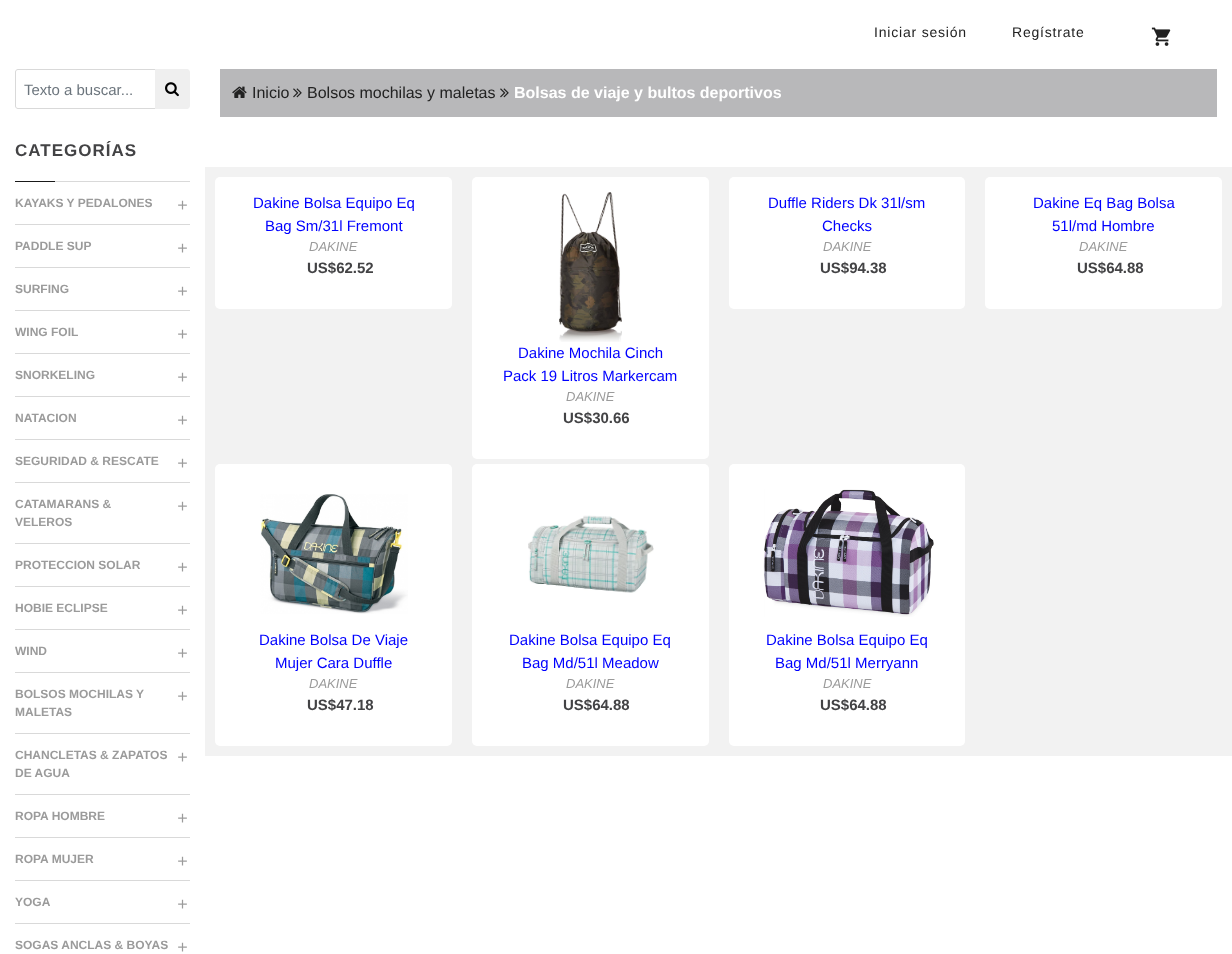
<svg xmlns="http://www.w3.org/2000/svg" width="1232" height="954">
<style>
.a{font:14px Liberation Sans;letter-spacing:0.8px;fill:#222}
.b{font:15px Liberation Sans;fill:#6c757d}
.c{font:bold 17px Liberation Sans;letter-spacing:1px;fill:#434345}
.d{font:bold 12px Liberation Sans;fill:#9b9b9b}
.e{font:16px Liberation Sans;fill:#222}
.f{font:bold 16px Liberation Sans;fill:#fff}
.g{font:15px Liberation Sans;fill:#00f}
.h{font:italic 13px Liberation Sans;fill:#9b9b9b}
.i{font:bold 15px Liberation Sans;fill:#434345}
</style>
<rect width="100%" height="100%" fill="#fff"/>
<image href="1.png" x="1151" y="27" width="20" height="19"/>
<path fill="none" stroke="#d9d9d9" d="M18 69.5h137.5v39h-137.5c-1.5 0-2.5-1-2.5-2.5v-34c0-1.5 1-2.5 2.5-2.5z"/>
<path fill="#efefef" d="M155 69h32c1.5 0 3 1.5 3 3v34c0 1.5-1.5 3-3 3h-32z"/>
<image href="2.png" x="165" y="82" width="14" height="15"/>
<path fill="#d9d9d9" d="M55 181h135v1H55z"/>
<path fill="#191919" d="M15 181h40v1H15z"/>
<path fill="#d9d9d9" d="M15 224h175v1H15z"/>
<image href="3.png" x="178" y="200" width="9" height="10"/>
<path fill="#d9d9d9" d="M15 267h175v1H15z"/>
<image href="3.png" x="178" y="243" width="9" height="10"/>
<path fill="#d9d9d9" d="M15 310h175v1H15z"/>
<image href="3.png" x="178" y="286" width="9" height="10"/>
<path fill="#d9d9d9" d="M15 353h175v1H15z"/>
<image href="3.png" x="178" y="329" width="9" height="10"/>
<path fill="#d9d9d9" d="M15 396h175v1H15z"/>
<image href="3.png" x="178" y="372" width="9" height="10"/>
<path fill="#d9d9d9" d="M15 439h175v1H15z"/>
<image href="3.png" x="178" y="415" width="9" height="10"/>
<path fill="#d9d9d9" d="M15 482h175v1H15z"/>
<image href="3.png" x="178" y="458" width="9" height="10"/>
<path fill="#d9d9d9" d="M15 543h175v1H15z"/>
<image href="3.png" x="178" y="501" width="9" height="10"/>
<path fill="#d9d9d9" d="M15 586h175v1H15z"/>
<image href="3.png" x="178" y="562" width="9" height="10"/>
<path fill="#d9d9d9" d="M15 629h175v1H15z"/>
<image href="3.png" x="178" y="605" width="9" height="10"/>
<path fill="#d9d9d9" d="M15 672h175v1H15z"/>
<image href="3.png" x="178" y="648" width="9" height="10"/>
<path fill="#d9d9d9" d="M15 733h175v1H15z"/>
<image href="3.png" x="178" y="691" width="9" height="10"/>
<path fill="#d9d9d9" d="M15 794h175v1H15z"/>
<image href="3.png" x="178" y="752" width="9" height="10"/>
<path fill="#d9d9d9" d="M15 837h175v1H15z"/>
<image href="3.png" x="178" y="813" width="9" height="10"/>
<path fill="#d9d9d9" d="M15 880h175v1H15z"/>
<image href="3.png" x="178" y="856" width="9" height="10"/>
<path fill="#d9d9d9" d="M15 923h175v1H15z"/>
<image href="3.png" x="178" y="899" width="9" height="10"/>
<image href="3.png" x="178" y="942" width="9" height="10"/>
<path fill="#b8b8ba" d="M220 69h997v48H220z"/>
<image href="4.png" x="232" y="86" width="15" height="12"/>
<image href="5.png" x="293" y="88" width="9" height="10"/>
<image href="5.png" x="500" y="88" width="9" height="10"/>
<path fill="#f2f2f2" d="M205 167h1027v589H205z"/>
<rect fill="#fff" x="215" y="177" width="237" height="132" rx="5"/>
<rect fill="#fff" x="729" y="177" width="236" height="132" rx="5"/>
<rect fill="#fff" x="985" y="177" width="237" height="132" rx="5"/>
<rect fill="#fff" x="472" y="177" width="237" height="282" rx="5"/>
<image href="6.png" x="559" y="192" width="63" height="150"/>
<rect fill="#fff" x="215" y="464" width="237" height="282" rx="5"/>
<image href="7.png" x="260" y="494" width="148" height="120"/>
<rect fill="#fff" x="472" y="464" width="237" height="282" rx="5"/>
<image href="8.png" x="528" y="515" width="126" height="78"/>
<rect fill="#fff" x="729" y="464" width="236" height="282" rx="5"/>
<image href="9.png" x="763" y="489" width="171" height="128"/>
<text class="a" x="874" y="37">Iniciar sesión</text>
<text class="a" x="1012" y="37">Regístrate</text>
<text class="b" x="24" y="95">Texto a buscar...</text>
<text class="c" x="15" y="156">CATEGORÍAS</text>
<text class="d" x="15" y="207">KAYAKS Y PEDALONES</text>
<text class="d" x="15" y="250">PADDLE SUP</text>
<text class="d" x="15" y="293">SURFING</text>
<text class="d" x="15" y="336">WING FOIL</text>
<text class="d" x="15" y="379">SNORKELING</text>
<text class="d" x="15" y="422">NATACION</text>
<text class="d" x="15" y="465">SEGURIDAD &amp; RESCATE</text>
<text class="d" x="15" y="508">CATAMARANS &amp;</text>
<text class="d" x="15" y="526">VELEROS</text>
<text class="d" x="15" y="569">PROTECCION SOLAR</text>
<text class="d" x="15" y="612">HOBIE ECLIPSE</text>
<text class="d" x="15" y="655">WIND</text>
<text class="d" x="15" y="698">BOLSOS MOCHILAS Y</text>
<text class="d" x="15" y="716">MALETAS</text>
<text class="d" x="15" y="759">CHANCLETAS &amp; ZAPATOS</text>
<text class="d" x="15" y="777">DE AGUA</text>
<text class="d" x="15" y="820">ROPA HOMBRE</text>
<text class="d" x="15" y="863">ROPA MUJER</text>
<text class="d" x="15" y="906">YOGA</text>
<text class="d" x="15" y="949">SOGAS ANCLAS &amp; BOYAS</text>
<text class="e" x="252" y="98">Inicio</text>
<text class="e" x="307" y="98">Bolsos mochilas y maletas</text>
<text class="f" x="514" y="98">Bolsas de viaje y bultos deportivos</text>
<text class="g" x="253" y="208">Dakine Bolsa Equipo Eq</text>
<text class="g" x="265" y="231">Bag Sm/31l Fremont</text>
<text class="h" x="309" y="251">DAKINE</text>
<text class="i" x="307" y="273">US$62.52</text>
<text class="g" x="768" y="208">Duffle Riders Dk 31l/sm</text>
<text class="g" x="822" y="231">Checks</text>
<text class="h" x="823" y="251">DAKINE</text>
<text class="i" x="820" y="273">US$94.38</text>
<text class="g" x="1033" y="208">Dakine Eq Bag Bolsa</text>
<text class="g" x="1052" y="231">51l/md Hombre</text>
<text class="h" x="1079" y="251">DAKINE</text>
<text class="i" x="1077" y="273">US$64.88</text>
<text class="g" x="518" y="358">Dakine Mochila Cinch</text>
<text class="g" x="503" y="381">Pack 19 Litros Markercam</text>
<text class="h" x="566" y="401">DAKINE</text>
<text class="i" x="563" y="423">US$30.66</text>
<text class="g" x="259" y="645">Dakine Bolsa De Viaje</text>
<text class="g" x="275" y="668">Mujer Cara Duffle</text>
<text class="h" x="309" y="688">DAKINE</text>
<text class="i" x="307" y="710">US$47.18</text>
<text class="g" x="509" y="645">Dakine Bolsa Equipo Eq</text>
<text class="g" x="522" y="668">Bag Md/51l Meadow</text>
<text class="h" x="566" y="688">DAKINE</text>
<text class="i" x="563" y="710">US$64.88</text>
<text class="g" x="766" y="645">Dakine Bolsa Equipo Eq</text>
<text class="g" x="775" y="668">Bag Md/51l Merryann</text>
<text class="h" x="823" y="688">DAKINE</text>
<text class="i" x="820" y="710">US$64.88</text>
</svg>
